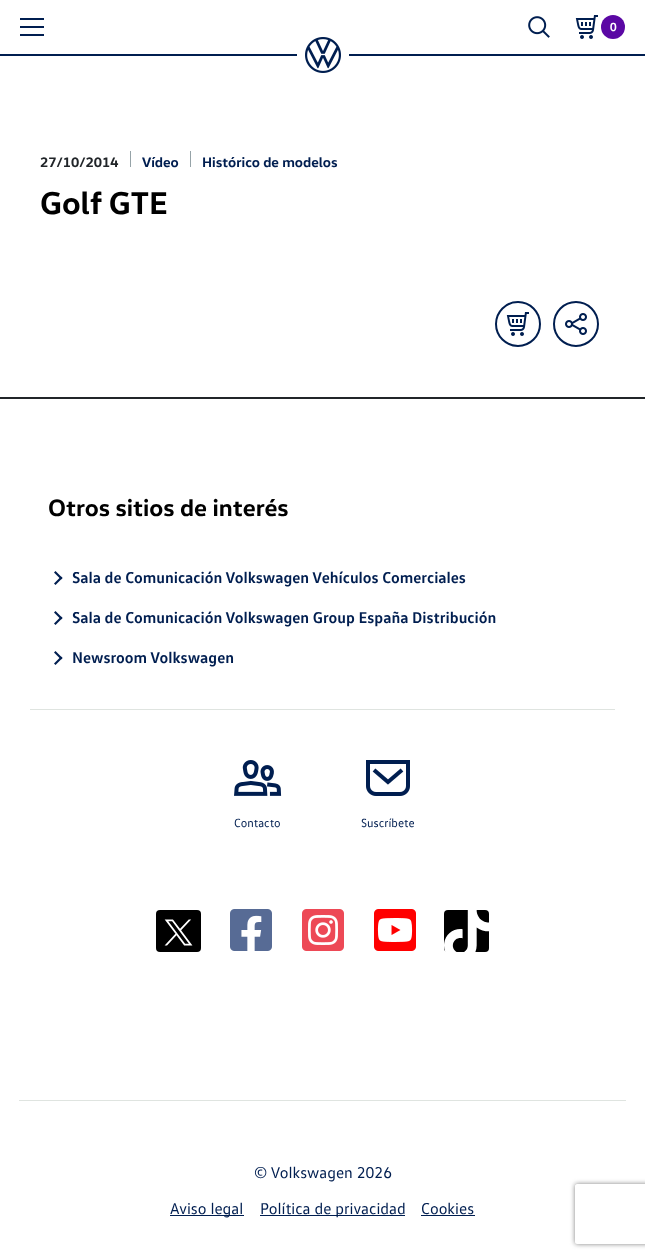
<svg xmlns="http://www.w3.org/2000/svg" width="645" height="1258">
<style>
.a{font:bold 12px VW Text;fill:#fff}
.b{font:bold 14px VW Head;fill:#212529}
.c{font:bold 14px VW Head;fill:#001e50}
.d{font:bold 32px VW Head;fill:#000}
.e{font:bold 24px VW Head;fill:#000}
.f{font:bold 16px VW Text;fill:#001e50}
.g{font:12px VW Text;fill:#001e50}
.h{font:16px VW Text;fill:#001e50}
</style>
<defs>
<clipPath id="clip1"><path d="M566 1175h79v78h-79zm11 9h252c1 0 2 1 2 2v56c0 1-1 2-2 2h-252c-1 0-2-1-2-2v-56c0-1 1-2 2-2z" clip-rule="evenodd"/></clipPath>
</defs>
<rect width="100%" height="100%" fill="#fff"/>
<path fill="#001e50" d="M0 54h645v2H0z"/>
<image href="1.png" x="20" y="18" width="24" height="18"/>
<image href="2.png" x="528" y="16" width="22" height="22"/>
<image href="3.png" x="575" y="15" width="23" height="24"/>
<circle fill="#5b08a4" cx="613" cy="27" r="12"/>
<path fill="#fff" d="M297 54h52v2H297z"/>
<image href="4.png" x="305" y="37" width="36" height="36"/>
<path fill="#96a3a8" d="M130 151h1v16H130z"/>
<path fill="#96a3a8" d="M190 151h1v16H190z"/>
<circle fill="none" stroke="#001e50" stroke-width="2" cx="518" cy="324" r="22"/>
<image href="3.png" x="506" y="312" width="23" height="24"/>
<circle fill="none" stroke="#001e50" stroke-width="2" cx="576" cy="324" r="22"/>
<image href="5.png" x="565" y="313" width="22" height="22"/>
<path fill="#212529" d="M0 397h645v2H0z"/>
<path fill="#dfe4e0" d="M30 709h585v1H30z"/>
<path fill="#001e50" d="M54 572.5l1.5-1.5l7 7l-1.5 1.5z"/>
<path fill="#001e50" d="M54 583.5l7-7l1.5 1.5l-7 7z"/>
<path fill="#001e50" d="M54 612.5l1.5-1.5l7 7l-1.5 1.5z"/>
<path fill="#001e50" d="M54 623.5l7-7l1.5 1.5l-7 7z"/>
<path fill="#001e50" d="M54 652.5l1.5-1.5l7 7l-1.5 1.5z"/>
<path fill="#001e50" d="M54 663.5l7-7l1.5 1.5l-7 7z"/>
<image href="6.png" x="234" y="760" width="48" height="36"/>
<image href="7.png" x="366" y="760" width="44" height="36"/>
<rect fill="#000" x="156" y="910" width="45" height="42" rx="4"/>
<image href="8.png" x="164" y="919" width="29" height="27"/>
<image href="9.png" x="230" y="909" width="42" height="42"/>
<image href="10.png" x="302" y="909" width="42" height="42"/>
<image href="11.png" x="374" y="909" width="42" height="42"/>
<rect fill="#000" x="444" y="910" width="45" height="42" rx="4"/>
<image href="12.png" x="444" y="910" width="45" height="42"/>
<path fill="#dfe4e0" d="M19 1100h607v1H19z"/>
<path fill="#001e50" d="M170 1215h74v1H170z"/>
<path fill="#001e50" d="M260 1215h145v1H260z"/>
<path fill="#001e50" d="M421 1215h54v1H421z"/>
<g clip-path="url(#clip1)">
<rect fill="#808080" filter="blur(2.5px)" x="575" y="1184" width="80" height="60" rx="2"/>
</g>
<text class="a" x="610" y="31">0</text>
<text class="b" x="40" y="167">27/10/2014</text>
<text class="c" x="142" y="167">Vídeo</text>
<text class="c" x="202" y="167">Histórico de modelos</text>
<text class="d" x="40" y="214">Golf GTE</text>
<text class="e" x="48" y="516">Otros sitios de interés</text>
<text class="f" x="72" y="583">Sala de Comunicación Volkswagen Vehículos Comerciales</text>
<text class="f" x="72" y="623">Sala de Comunicación Volkswagen Group España Distribución</text>
<text class="f" x="72" y="663">Newsroom Volkswagen</text>
<text class="g" x="234" y="827">Contacto</text>
<text class="g" x="361" y="827">Suscríbete</text>
<text class="h" x="254" y="1178">© Volkswagen 2026</text>
<text class="h" x="170" y="1214">Aviso legal</text>
<text class="h" x="260" y="1214">Política de privacidad</text>
<text class="h" x="421" y="1214">Cookies</text>
</svg>
